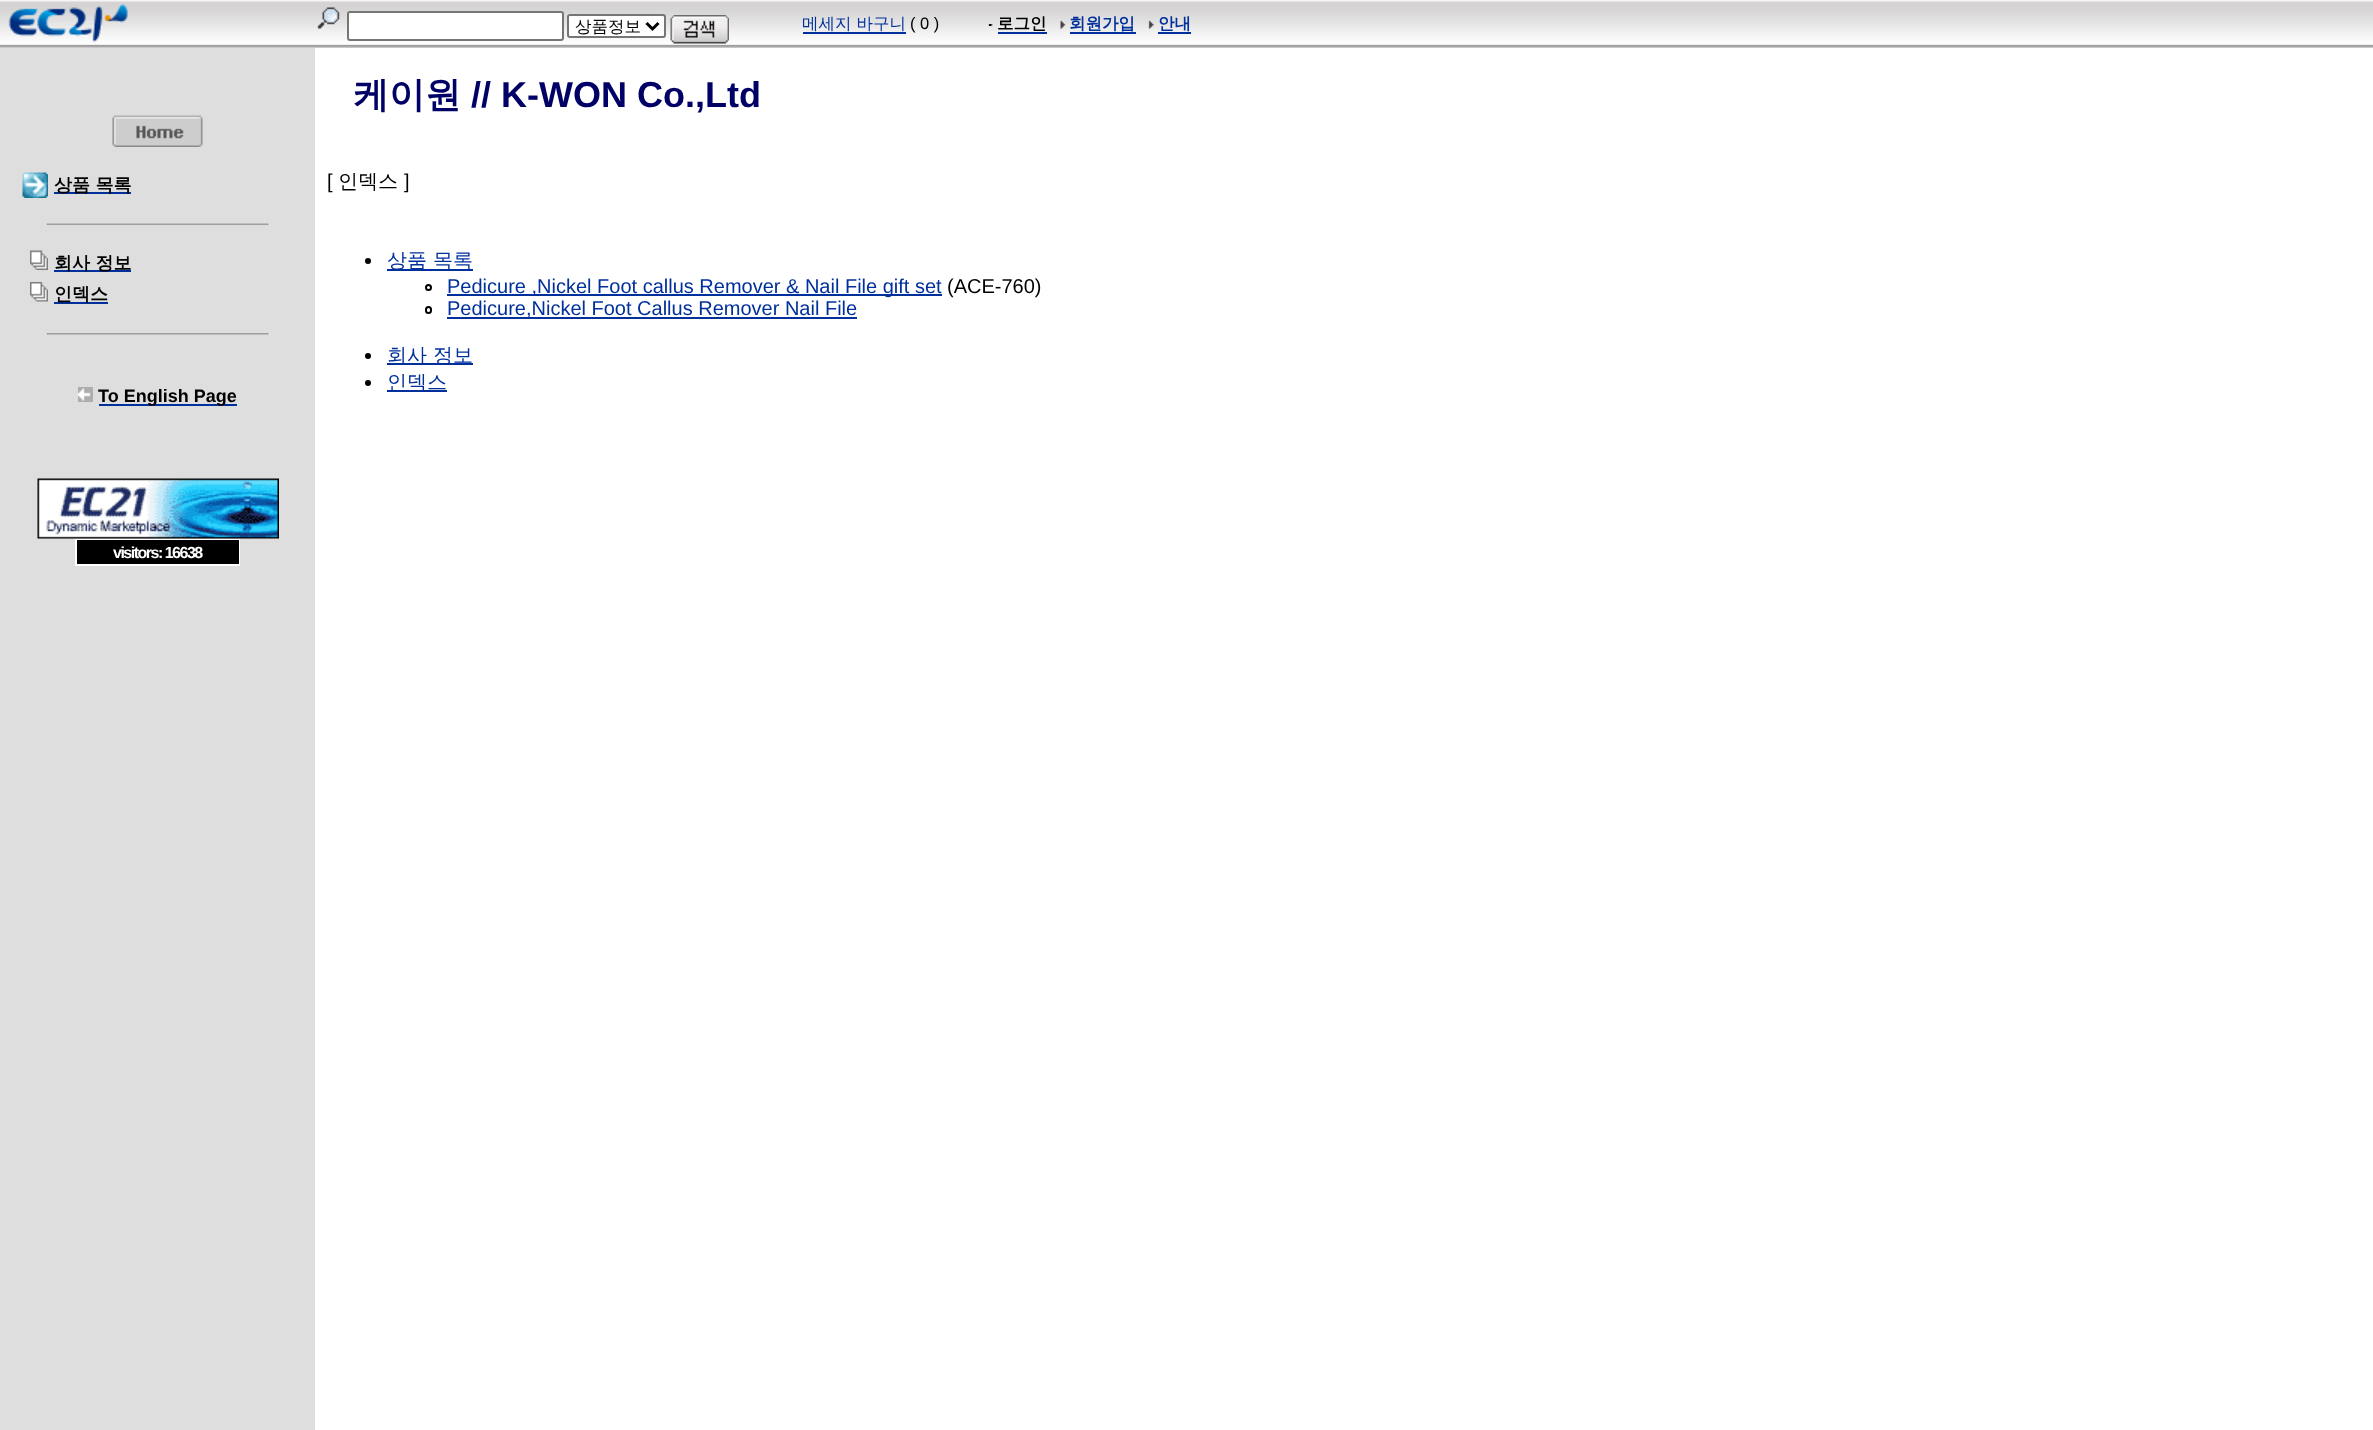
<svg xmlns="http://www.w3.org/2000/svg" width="2373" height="1430">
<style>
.a{font:500 16.5px WenQuanYi Zen Hei;fill:#000}
.b{font:500 16.5px WenQuanYi Zen Hei;fill:#00309c}
.c{font:16.5px Liberation Sans;fill:#000}
.d{font:bold 16.5px WenQuanYi Zen Hei;fill:#000}
.e{font:bold 16.5px WenQuanYi Zen Hei;fill:#00309c}
.f{font:bold 18px WenQuanYi Zen Hei;fill:#000}
.g{font:bold 18px Liberation Sans;fill:#000}
.h{font:bold 16px Liberation Sans;letter-spacing:-1.5px;fill:#fff}
.i{font:bold 36px WenQuanYi Zen Hei;fill:#006}
.j{font:bold 36px Liberation Sans;fill:#006}
.k{font:20px Liberation Sans;fill:#000}
.l{font:500 20px WenQuanYi Zen Hei;fill:#000}
.m{font:500 20px WenQuanYi Zen Hei;fill:#00309c}
.n{font:20px Liberation Sans;fill:#00309c}
</style>
<rect width="100%" height="100%" fill="#fff"/>
<image href="1.png" x="0" y="0" width="2373" height="48"/>
<image href="2.png" x="8" y="4" width="120" height="39"/>
<image href="3.png" x="317" y="7" width="23" height="22"/>
<rect fill="#fff" stroke="#767676" stroke-width="2" x="348" y="12" width="215" height="28" rx="2"/>
<rect fill="#fff" stroke="#767676" stroke-width="2" x="568" y="15" width="97" height="22" rx="2"/>
<path fill="none" stroke="#000" stroke-width="3" d="M646.5 23l6 6l6-6"/>
<image href="4.png" x="670" y="15" width="59" height="29"/>
<path fill="#00309c" d="M803 32h103v2H803z"/>
<image href="5.png" x="988" y="24" width="5" height="2"/>
<path fill="#00309c" d="M998 32h49v2H998z"/>
<image href="6.png" x="1060" y="20" width="6" height="9"/>
<path fill="#00309c" d="M1070 32h66v2H1070z"/>
<image href="7.png" x="1148" y="20" width="6" height="9"/>
<path fill="#00309c" d="M1158 32h33v2H1158z"/>
<path fill="#dedede" d="M0 48h315v1382H0z"/>
<image href="8.png" x="112" y="115" width="91" height="32"/>
<image href="9.png" x="22" y="172" width="26" height="26"/>
<path fill="#00309c" d="M54 192h77v2H54z"/>
<image href="10.png" x="45" y="223" width="225" height="2"/>
<image href="11.png" x="30" y="250" width="18" height="20"/>
<path fill="#00309c" d="M54 270h77v2H54z"/>
<image href="12.png" x="30" y="282" width="18" height="20"/>
<path fill="#00309c" d="M54 302h54v2H54z"/>
<image href="13.png" x="45" y="333" width="225" height="2"/>
<image href="14.png" x="78" y="387" width="15" height="15"/>
<path fill="#00309c" d="M99 404h138v2H99z"/>
<image href="15.png" x="37" y="478" width="242" height="61"/>
<path fill="#fff" d="M75 539h165v27H75z"/>
<path fill="#000" d="M77 540h162v24H77z"/>
<circle fill="#000" cx="368" cy="261" r="3"/>
<path fill="#00309c" d="M387 269h86v2H387z"/>
<circle fill="none" stroke="#000" stroke-width="2" cx="428.5" cy="287.5" r="2.5"/>
<path fill="#00309c" d="M447 294h495v2H447z"/>
<rect fill="none" stroke="#000" stroke-width="2" x="426" y="307" width="5" height="6" rx="2.5"/>
<path fill="#00309c" d="M447 317h410v2H447z"/>
<circle fill="#000" cx="368" cy="356" r="3"/>
<path fill="#00309c" d="M387 363h86v2H387z"/>
<circle fill="#000" cx="368" cy="383" r="3"/>
<path fill="#00309c" d="M387 390h60v2H387z"/>
<text class="a" x="575" y="32">상품정보</text>
<text class="b" x="802" y="29">메세지 바구니</text>
<text class="c" x="910" y="29">( 0 )</text>
<text class="d" x="997" y="29">로그인</text>
<text class="e" x="1069" y="29">회원가입</text>
<text class="e" x="1158" y="29">안내</text>
<text class="f" x="54" y="191">상품 목록</text>
<text class="f" x="54" y="269">회사 정보</text>
<text class="f" x="54" y="300">인덱스</text>
<text class="g" x="98" y="402">To English Page</text>
<text class="h" x="113" y="558">visitors: 16638</text>
<text class="i" x="353" y="107">케이원</text>
<text class="j" x="471" y="107">// K-WON Co.,Ltd</text>
<text class="k" x="327" y="188">[</text>
<text class="l" x="338" y="188">인덱스</text>
<text class="k" x="404" y="188">]</text>
<text class="m" x="387" y="267">상품 목록</text>
<text class="n" x="447" y="293">Pedicure ,Nickel Foot callus Remover &amp; Nail File gift set</text>
<text class="k" x="947" y="293">(ACE-760)</text>
<text class="n" x="447" y="315">Pedicure,Nickel Foot Callus Remover Nail File</text>
<text class="m" x="387" y="362">회사 정보</text>
<text class="m" x="387" y="389">인덱스</text>
</svg>
